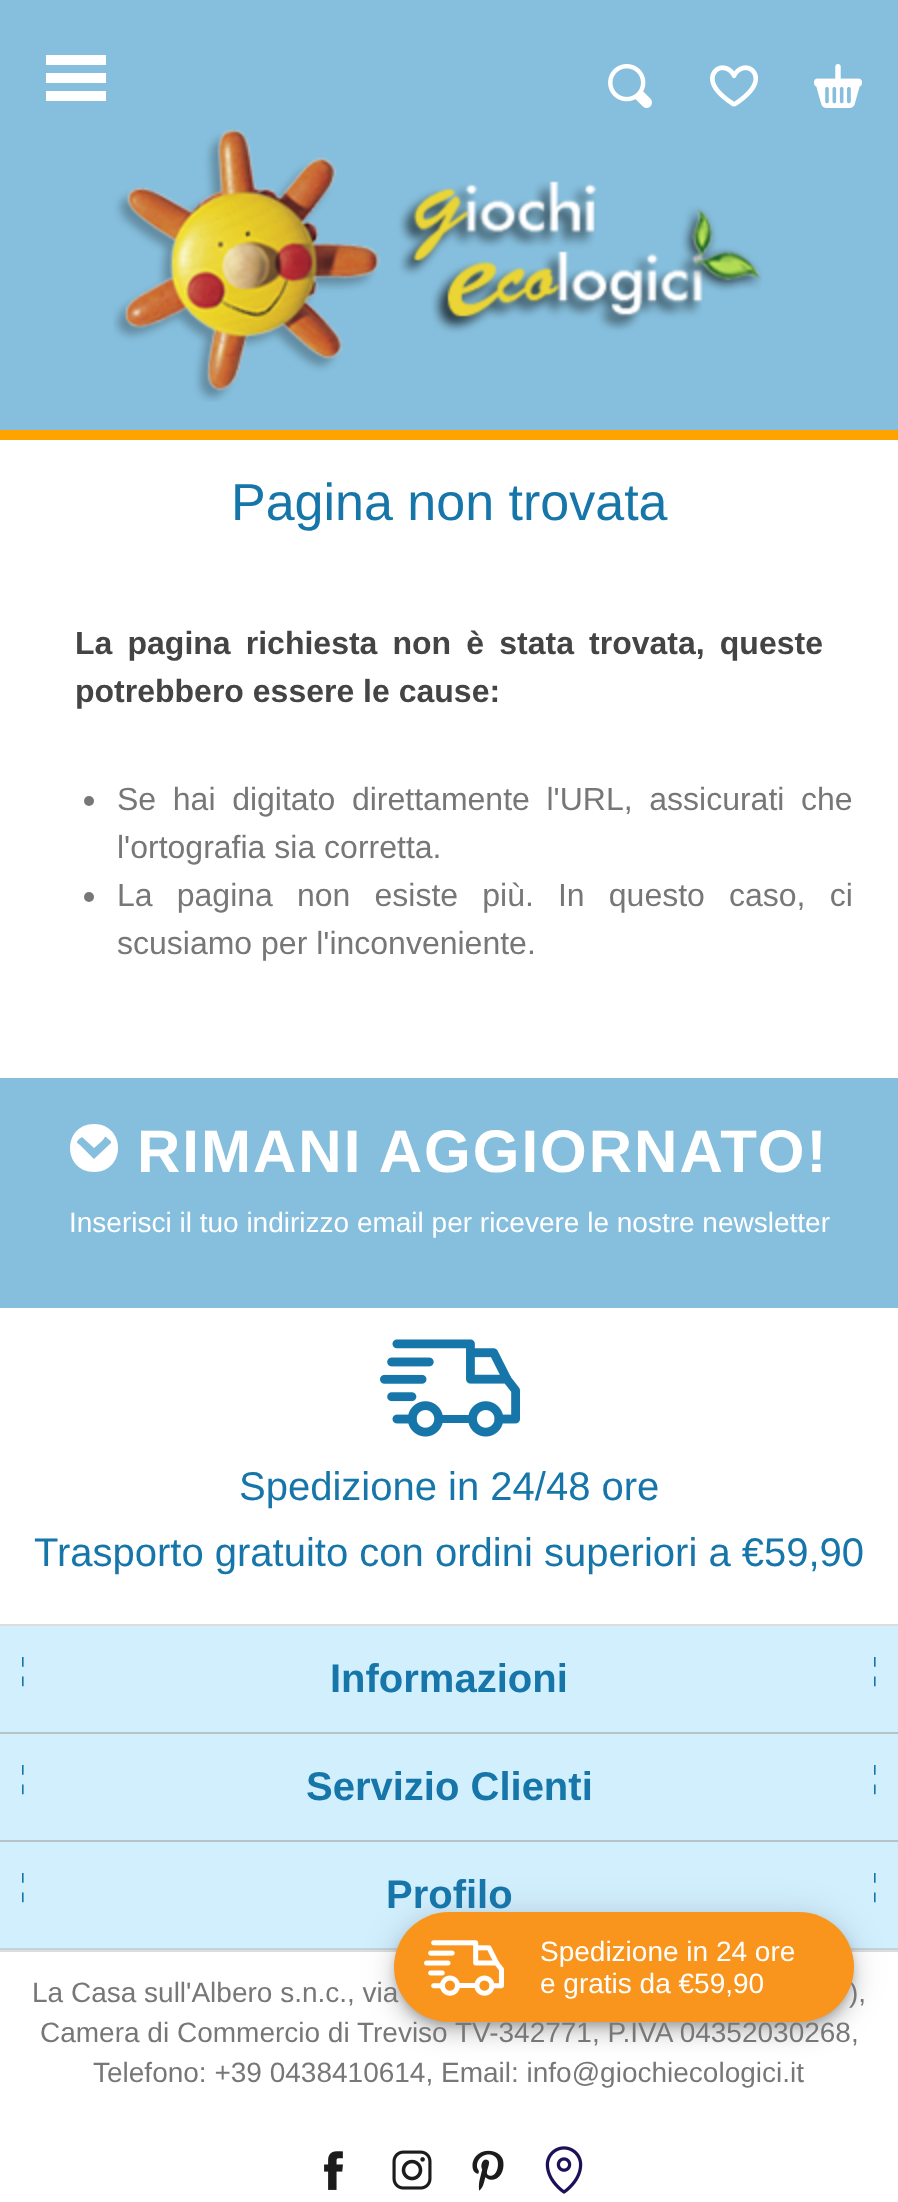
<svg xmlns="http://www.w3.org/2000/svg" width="898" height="2202">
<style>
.a{font:52px Liberation Sans;fill:#1676aa}
.b{font:bold 32px Liberation Sans;fill:#444}
.c{font:32px Liberation Sans;fill:#777}
.d{font:bold 60px Liberation Sans;letter-spacing:2px;fill:#fff}
.e{font:28px Liberation Sans;fill:#fff}
.f{font:40px Liberation Sans;fill:#1676aa}
.g{font:32px Liberation Serif;fill:#1676aa}
.h{font:bold 40px Liberation Sans;fill:#1676aa}
.i{font:28px Liberation Sans;fill:#777}
</style>
<rect width="100%" height="100%" fill="#fff"/>
<path fill="#86bfdd" d="M0 0h898v430H0z"/>
<path fill="#ffa300" d="M0 430h898v10H0z"/>
<path fill="#fff" d="M46 55h60v10H46z"/>
<path fill="#fff" d="M46 73h60v10H46z"/>
<path fill="#fff" d="M46 91h60v10H46z"/>
<image href="1.png" x="608" y="64" width="44" height="44"/>
<image href="2.png" x="710" y="65" width="48" height="42"/>
<image href="3.png" x="814" y="64" width="48" height="44"/>
<image href="4.png" x="113" y="129" width="649" height="273"/>
<circle fill="#777" cx="89" cy="801" r="5"/>
<circle fill="#777" cx="89" cy="897" r="5"/>
<path fill="#86bfdd" d="M0 1078h898v230H0z"/>
<path fill="#fff" d="M94 1124c-32 0-32 48 0 48c32 0 32-48 0-48zm17 19l-17 16l-14-14c-4-3-4-2-1-6l3-2l12 11l8-7c3-3 3-6 5-3c1 1 5 3 4 5z"/>
<image href="5.png" x="380" y="1339" width="140" height="98"/>
<path fill="#d2effd" d="M0 1626h898v106H0z"/>
<path fill="#ddd" d="M0 1624h898v2H0z"/>
<path fill="#d2effd" d="M0 1734h898v106H0z"/>
<path fill="#b8c3c8" d="M0 1732h898v2H0z"/>
<path fill="#d2effd" d="M0 1842h898v106H0z"/>
<path fill="#b8c3c8" d="M0 1840h898v2H0z"/>
<path fill="#c2d3dc" d="M0 1948h898v2H0z"/>
<path fill="#ddd" d="M0 1950h898v2H0z"/>
<image href="6.png" x="324" y="2151" width="19" height="39"/>
<image href="7.png" x="392" y="2150" width="40" height="40"/>
<image href="8.png" x="472" y="2150" width="32" height="41"/>
<image href="9.png" x="545" y="2146" width="38" height="48"/>
<rect fill="#0000001f" filter="blur(18px)" x="394" y="1914" width="460" height="110" rx="55"/>
<rect fill="#00000024" filter="blur(10px)" x="394" y="1924" width="460" height="110" rx="55"/>
<rect fill="#00000033" filter="blur(5px)" x="396" y="1920" width="456" height="106" rx="53"/>
<text class="a" x="231" y="520">Pagina non trovata</text>
<text class="b" x="75" y="654" word-spacing="6.25">La pagina richiesta non è stata trovata, queste</text>
<text class="b" x="75" y="702">potrebbero essere le cause:</text>
<text class="c" x="117" y="810" word-spacing="7.75">Se hai digitato direttamente l'URL, assicurati che</text>
<text class="c" x="117" y="858">l'ortografia sia corretta.</text>
<text class="c" x="117" y="906" word-spacing="15.25">La pagina non esiste più. In questo caso, ci</text>
<text class="c" x="117" y="954">scusiamo per l'inconveniente.</text>
<text class="d" x="137" y="1172">RIMANI AGGIORNATO!</text>
<text class="e" x="69" y="1232">Inserisci il tuo indirizzo email per ricevere le nostre newsletter</text>
<text class="f" x="239" y="1500">Spedizione in 24/48 ore</text>
<text class="f" x="34" y="1566">Trasporto gratuito con ordini superiori a €59,90</text>
<text class="g" x="26" y="1664" transform="rotate(180 26 1664)">¦</text>
<text class="h" x="330" y="1692">Informazioni</text>
<text class="g" x="878" y="1664" transform="rotate(180 878 1664)">¦</text>
<text class="g" x="26" y="1772" transform="rotate(180 26 1772)">¦</text>
<text class="h" x="306" y="1800">Servizio Clienti</text>
<text class="g" x="878" y="1772" transform="rotate(180 878 1772)">¦</text>
<text class="g" x="26" y="1880" transform="rotate(180 26 1880)">¦</text>
<text class="h" x="386" y="1908">Profilo</text>
<text class="g" x="878" y="1880" transform="rotate(180 878 1880)">¦</text>
<text class="i" x="32" y="2002">La Casa sull'Albero s.n.c., via</text>
<text class="i" x="849" y="2002">),</text>
<text class="i" x="40" y="2042">Camera di Commercio di Treviso TV-342771, P.IVA 04352030268,</text>
<text class="i" x="93" y="2082">Telefono: +39 0438410614, Email: info@giochiecologici.it</text>
<rect fill="#f9951d" x="394" y="1912" width="460" height="110" rx="55"/>
<image href="10.png" x="424" y="1940" width="80" height="56"/>
<text class="e" x="540" y="1961">Spedizione in 24 ore</text>
<text class="e" x="540" y="1993">e gratis da €59,90</text>
</svg>
